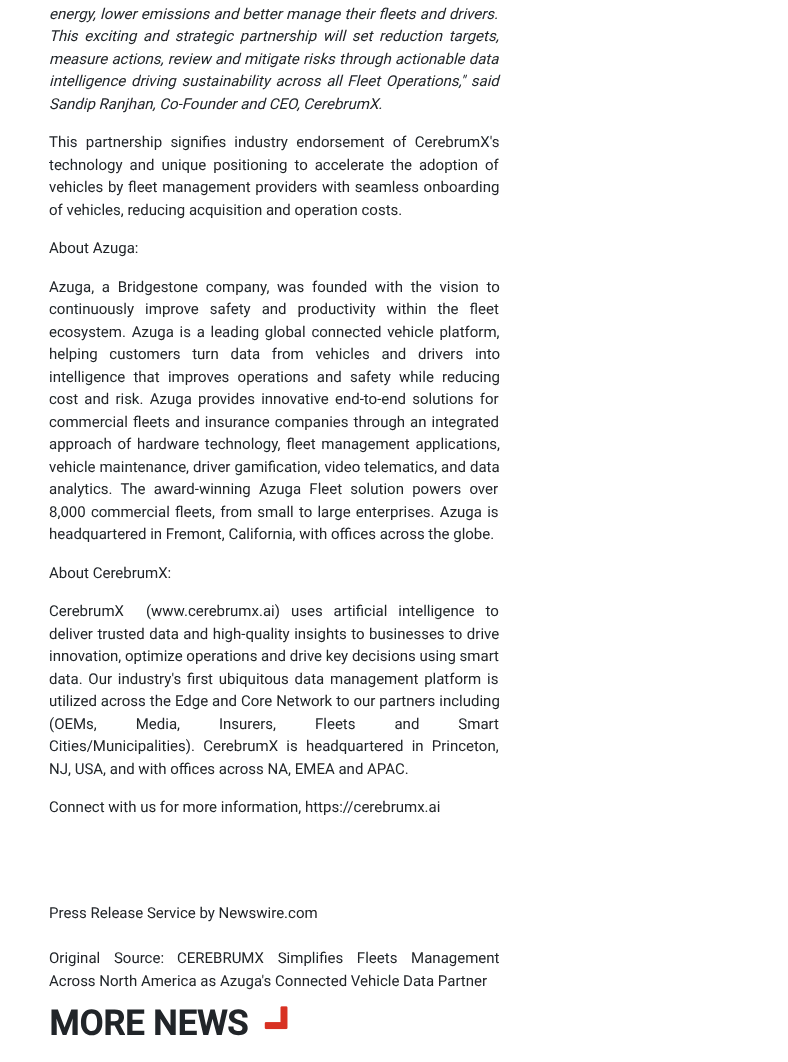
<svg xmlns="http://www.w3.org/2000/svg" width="788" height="1062">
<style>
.a{font:italic 15px Roboto;fill:#212529}
.b{font:15px Roboto;fill:#212529}
.c{font:bold 34.5px Roboto;fill:#212529}
</style>
<rect width="100%" height="100%" fill="#fff"/>
<image href="1.png" x="264" y="1006" width="24" height="24"/>
<text class="a" x="49" y="19" word-spacing="0.5">energy, lower emissions and better manage their fleets and drivers.</text>
<text class="a" x="49" y="41" word-spacing="3">This exciting and strategic partnership will set reduction targets,</text>
<text class="a" x="49" y="64" word-spacing="0.5">measure actions, review and mitigate risks through actionable data</text>
<text class="a" x="49" y="86" word-spacing="2">intelligence driving sustainability across all Fleet Operations," said</text>
<text class="a" x="49" y="109">Sandip Ranjhan, Co-Founder and CEO, CerebrumX.</text>
<text class="b" x="49" y="147" word-spacing="4.5">This partnership signifies industry endorsement of CerebrumX's</text>
<text class="b" x="49" y="170" word-spacing="3.25">technology and unique positioning to accelerate the adoption of</text>
<text class="b" x="49" y="192" word-spacing="1">vehicles by fleet management providers with seamless onboarding</text>
<text class="b" x="49" y="215">of vehicles, reducing acquisition and operation costs.</text>
<text class="b" x="49" y="253">About Azuga:</text>
<text class="b" x="49" y="292" word-spacing="4">Azuga, a Bridgestone company, was founded with the vision to</text>
<text class="b" x="49" y="314" word-spacing="7.25">continuously improve safety and productivity within the fleet</text>
<text class="b" x="49" y="337" word-spacing="2">ecosystem. Azuga is a leading global connected vehicle platform,</text>
<text class="b" x="49" y="359" word-spacing="8">helping customers turn data from vehicles and drivers into</text>
<text class="b" x="49" y="382" word-spacing="4.5">intelligence that improves operations and safety while reducing</text>
<text class="b" x="49" y="404" word-spacing="2.5">cost and risk. Azuga provides innovative end-to-end solutions for</text>
<text class="b" x="49" y="427" word-spacing="1.25">commercial fleets and insurance companies through an integrated</text>
<text class="b" x="49" y="449" word-spacing="2">approach of hardware technology, fleet management applications,</text>
<text class="b" x="49" y="472" word-spacing="0.25">vehicle maintenance, driver gamification, video telematics, and data</text>
<text class="b" x="49" y="494" word-spacing="4.5">analytics. The award-winning Azuga Fleet solution powers over</text>
<text class="b" x="49" y="517" word-spacing="1.5">8,000 commercial fleets, from small to large enterprises. Azuga is</text>
<text class="b" x="49" y="539">headquartered in Fremont, California, with offices across the globe.</text>
<text class="b" x="49" y="578">About CerebrumX:</text>
<text class="b" xml:space="preserve" x="49" y="616" word-spacing="7.25">CerebrumX  (www.cerebrumx.ai) uses artificial intelligence to</text>
<text class="b" x="49" y="639" word-spacing="0.75">deliver trusted data and high-quality insights to businesses to drive</text>
<text class="b" x="49" y="661">innovation, optimize operations and drive key decisions using smart</text>
<text class="b" x="49" y="684" word-spacing="2">data. Our industry's first ubiquitous data management platform is</text>
<text class="b" x="49" y="706" word-spacing="0.25">utilized across the Edge and Core Network to our partners including</text>
<text class="b" x="49" y="729" word-spacing="35.25">(OEMs, Media, Insurers, Fleets and Smart</text>
<text class="b" x="49" y="751" word-spacing="4.5">Cities/Municipalities). CerebrumX is headquartered in Princeton,</text>
<text class="b" x="49" y="774">NJ, USA, and with offices across NA, EMEA and APAC.</text>
<text class="b" x="49" y="812">Connect with us for more information, https://cerebrumx.ai</text>
<text class="b" x="49" y="918">Press Release Service by Newswire.com</text>
<text class="b" x="49" y="963" word-spacing="10">Original Source:</text>
<text class="b" x="177" y="963" word-spacing="10">CEREBRUMX Simplifies Fleets Management</text>
<text class="b" x="49" y="986">Across North America as Azuga's Connected Vehicle Data Partner</text>
<text class="c" x="49" y="1035">MORE NEWS</text>
</svg>
